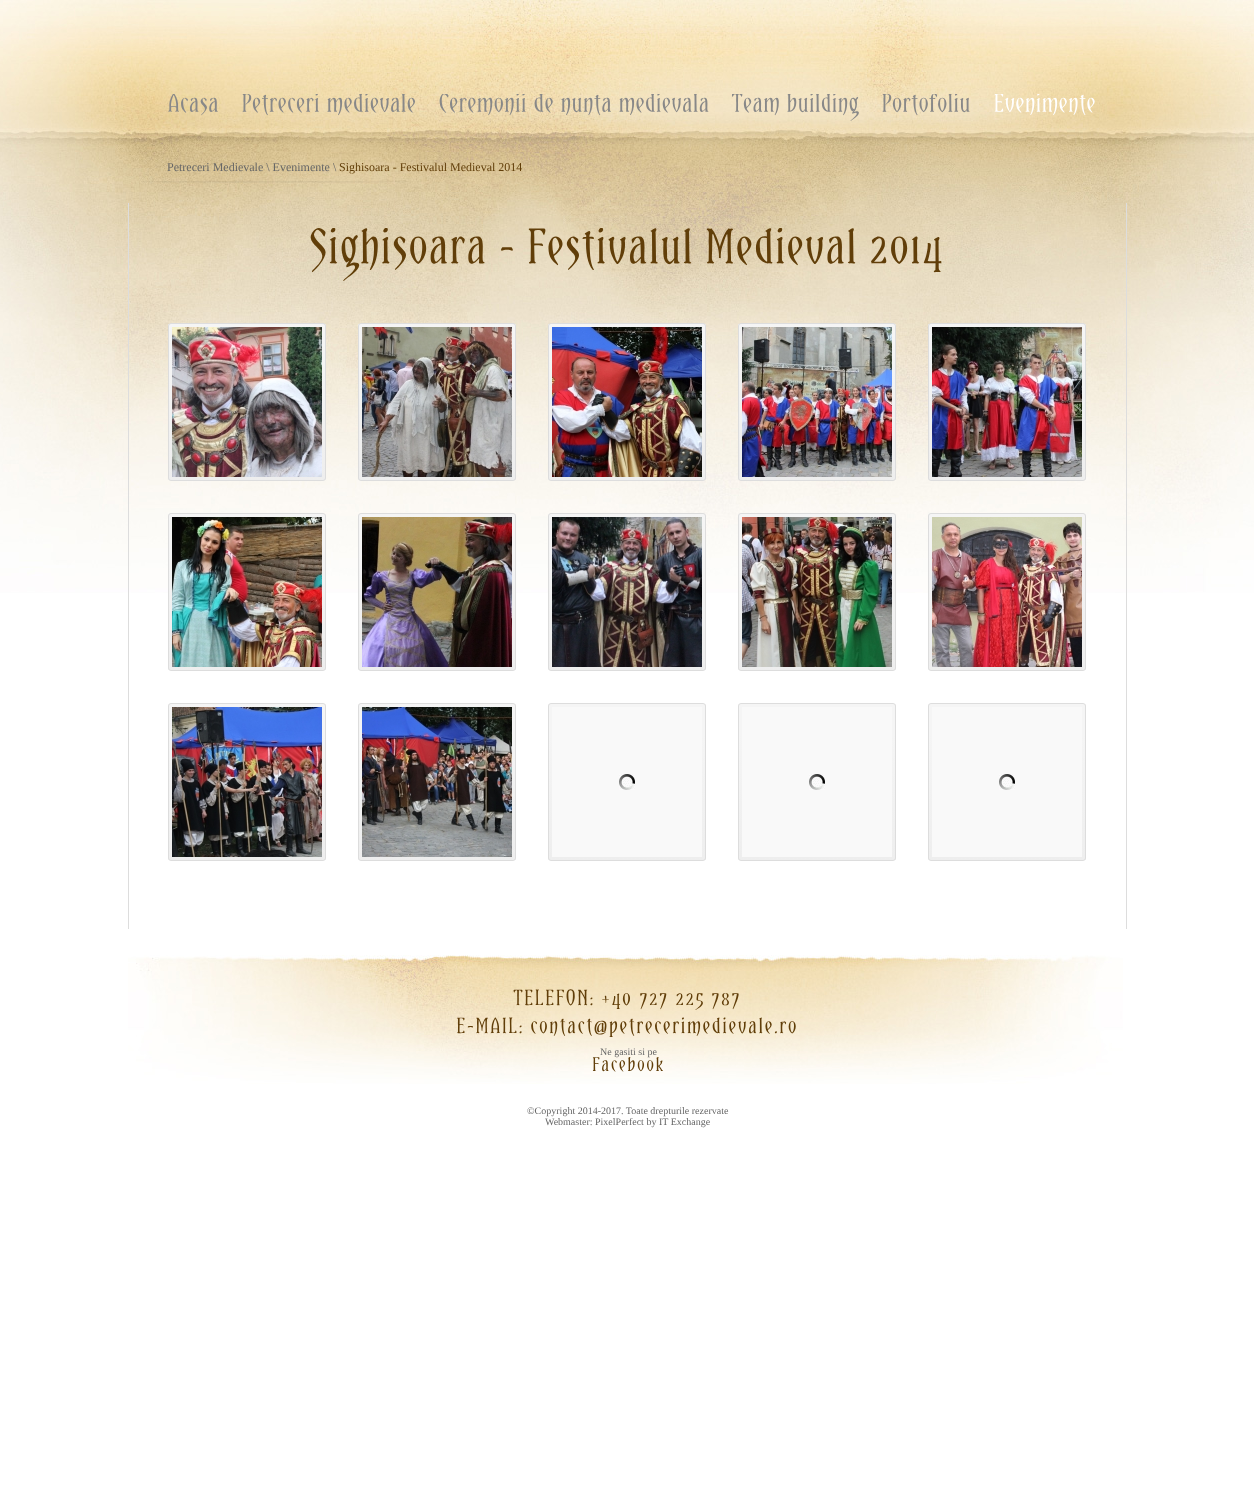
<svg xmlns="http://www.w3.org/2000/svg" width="1254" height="1495">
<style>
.a{font:12px Liberation Serif;fill:#666}
.b{font:12px Liberation Serif;fill:#613e09}
.c{font:10px Liberation Serif;fill:#666}
</style>
<defs>
<clipPath id="clip1"><rect x="168" y="323" width="158" height="158" rx="3"/></clipPath>
<linearGradient id="g1" gradientUnits="userSpaceOnUse" x1="169" y1="324" x2="169" y2="480"><stop offset="0.2" stop-color="#f5f5f5"/><stop offset="1" stop-color="#eee"/></linearGradient>
<clipPath id="clip2"><rect x="358" y="323" width="158" height="158" rx="3"/></clipPath>
<linearGradient id="g2" gradientUnits="userSpaceOnUse" x1="359" y1="324" x2="359" y2="480"><stop offset="0.2" stop-color="#f5f5f5"/><stop offset="1" stop-color="#eee"/></linearGradient>
<clipPath id="clip3"><rect x="548" y="323" width="158" height="158" rx="3"/></clipPath>
<linearGradient id="g3" gradientUnits="userSpaceOnUse" x1="549" y1="324" x2="549" y2="480"><stop offset="0.2" stop-color="#f5f5f5"/><stop offset="1" stop-color="#eee"/></linearGradient>
<clipPath id="clip4"><rect x="738" y="323" width="158" height="158" rx="3"/></clipPath>
<linearGradient id="g4" gradientUnits="userSpaceOnUse" x1="739" y1="324" x2="739" y2="480"><stop offset="0.2" stop-color="#f5f5f5"/><stop offset="1" stop-color="#eee"/></linearGradient>
<clipPath id="clip5"><rect x="928" y="323" width="158" height="158" rx="3"/></clipPath>
<linearGradient id="g5" gradientUnits="userSpaceOnUse" x1="929" y1="324" x2="929" y2="480"><stop offset="0.2" stop-color="#f5f5f5"/><stop offset="1" stop-color="#eee"/></linearGradient>
<clipPath id="clip6"><rect x="168" y="513" width="158" height="158" rx="3"/></clipPath>
<linearGradient id="g6" gradientUnits="userSpaceOnUse" x1="169" y1="514" x2="169" y2="670"><stop offset="0.2" stop-color="#f5f5f5"/><stop offset="1" stop-color="#eee"/></linearGradient>
<clipPath id="clip7"><rect x="358" y="513" width="158" height="158" rx="3"/></clipPath>
<linearGradient id="g7" gradientUnits="userSpaceOnUse" x1="359" y1="514" x2="359" y2="670"><stop offset="0.2" stop-color="#f5f5f5"/><stop offset="1" stop-color="#eee"/></linearGradient>
<clipPath id="clip8"><rect x="548" y="513" width="158" height="158" rx="3"/></clipPath>
<linearGradient id="g8" gradientUnits="userSpaceOnUse" x1="549" y1="514" x2="549" y2="670"><stop offset="0.2" stop-color="#f5f5f5"/><stop offset="1" stop-color="#eee"/></linearGradient>
<clipPath id="clip9"><rect x="738" y="513" width="158" height="158" rx="3"/></clipPath>
<linearGradient id="g9" gradientUnits="userSpaceOnUse" x1="739" y1="514" x2="739" y2="670"><stop offset="0.2" stop-color="#f5f5f5"/><stop offset="1" stop-color="#eee"/></linearGradient>
<clipPath id="clip10"><rect x="928" y="513" width="158" height="158" rx="3"/></clipPath>
<linearGradient id="g10" gradientUnits="userSpaceOnUse" x1="929" y1="514" x2="929" y2="670"><stop offset="0.2" stop-color="#f5f5f5"/><stop offset="1" stop-color="#eee"/></linearGradient>
<clipPath id="clip11"><rect x="168" y="703" width="158" height="158" rx="3"/></clipPath>
<linearGradient id="g11" gradientUnits="userSpaceOnUse" x1="169" y1="704" x2="169" y2="860"><stop offset="0.2" stop-color="#f5f5f5"/><stop offset="1" stop-color="#eee"/></linearGradient>
<clipPath id="clip12"><rect x="358" y="703" width="158" height="158" rx="3"/></clipPath>
<linearGradient id="g12" gradientUnits="userSpaceOnUse" x1="359" y1="704" x2="359" y2="860"><stop offset="0.2" stop-color="#f5f5f5"/><stop offset="1" stop-color="#eee"/></linearGradient>
<clipPath id="clip13"><rect x="548" y="703" width="158" height="158" rx="3"/></clipPath>
<linearGradient id="g13" gradientUnits="userSpaceOnUse" x1="549" y1="704" x2="549" y2="860"><stop offset="0.2" stop-color="#f5f5f5"/><stop offset="1" stop-color="#eee"/></linearGradient>
<clipPath id="clip14"><rect x="738" y="703" width="158" height="158" rx="3"/></clipPath>
<linearGradient id="g14" gradientUnits="userSpaceOnUse" x1="739" y1="704" x2="739" y2="860"><stop offset="0.2" stop-color="#f5f5f5"/><stop offset="1" stop-color="#eee"/></linearGradient>
<clipPath id="clip15"><rect x="928" y="703" width="158" height="158" rx="3"/></clipPath>
<linearGradient id="g15" gradientUnits="userSpaceOnUse" x1="929" y1="704" x2="929" y2="860"><stop offset="0.2" stop-color="#f5f5f5"/><stop offset="1" stop-color="#eee"/></linearGradient>
</defs>
<rect width="100%" height="100%" fill="#fff"/>
<image href="1.png" x="0" y="0" width="1254" height="593"/>
<image href="2.png" x="168" y="94" width="50" height="22"/>
<image href="3.png" x="242" y="94" width="77" height="22"/>
<image href="4.png" x="327" y="94" width="88" height="22"/>
<image href="5.png" x="439" y="94" width="87" height="22"/>
<image href="6.png" x="534" y="94" width="19" height="19"/>
<image href="7.png" x="561" y="94" width="50" height="22"/>
<image href="8.png" x="619" y="94" width="90" height="22"/>
<image href="9.png" x="732" y="94" width="47" height="22"/>
<image href="10.png" x="787" y="94" width="72" height="27"/>
<image href="11.png" x="882" y="94" width="88" height="22"/>
<image href="12.png" x="994" y="94" width="101" height="21"/>
<image href="13.png" x="142" y="181" width="265" height="2"/>
<path fill="#ddd" d="M1126 203h1v726H1126z"/>
<path fill="#ddd" d="M128 203h1v726H128z"/>
<image href="14.png" x="310" y="228" width="175" height="53"/>
<image href="15.png" x="501" y="247" width="12" height="4"/>
<image href="16.png" x="528" y="228" width="164" height="42"/>
<image href="17.png" x="706" y="228" width="150" height="38"/>
<image href="18.png" x="871" y="236" width="71" height="37"/>
<g clip-path="url(#clip1)">
<path fill="url(#g1)" d="M168 324h158v156H168z"/>
</g>
<rect fill="none" stroke="#ddd" x="168.5" y="323.5" width="157" height="157" rx="2.5"/>
<image href="19.png" x="172" y="327" width="150" height="150"/>
<g clip-path="url(#clip2)">
<path fill="url(#g2)" d="M358 324h158v156H358z"/>
</g>
<rect fill="none" stroke="#ddd" x="358.5" y="323.5" width="157" height="157" rx="2.5"/>
<image href="20.png" x="362" y="327" width="150" height="150"/>
<g clip-path="url(#clip3)">
<path fill="url(#g3)" d="M548 324h158v156H548z"/>
</g>
<rect fill="none" stroke="#ddd" x="548.5" y="323.5" width="157" height="157" rx="2.5"/>
<image href="21.png" x="552" y="327" width="150" height="150"/>
<g clip-path="url(#clip4)">
<path fill="url(#g4)" d="M738 324h158v156H738z"/>
</g>
<rect fill="none" stroke="#ddd" x="738.5" y="323.5" width="157" height="157" rx="2.5"/>
<image href="22.png" x="742" y="327" width="150" height="150"/>
<g clip-path="url(#clip5)">
<path fill="url(#g5)" d="M928 324h158v156H928z"/>
</g>
<rect fill="none" stroke="#ddd" x="928.5" y="323.5" width="157" height="157" rx="2.5"/>
<image href="23.png" x="932" y="327" width="150" height="150"/>
<g clip-path="url(#clip6)">
<path fill="url(#g6)" d="M168 514h158v156H168z"/>
</g>
<rect fill="none" stroke="#ddd" x="168.5" y="513.5" width="157" height="157" rx="2.5"/>
<image href="24.png" x="172" y="517" width="150" height="150"/>
<g clip-path="url(#clip7)">
<path fill="url(#g7)" d="M358 514h158v156H358z"/>
</g>
<rect fill="none" stroke="#ddd" x="358.5" y="513.5" width="157" height="157" rx="2.5"/>
<image href="25.png" x="362" y="517" width="150" height="150"/>
<g clip-path="url(#clip8)">
<path fill="url(#g8)" d="M548 514h158v156H548z"/>
</g>
<rect fill="none" stroke="#ddd" x="548.5" y="513.5" width="157" height="157" rx="2.5"/>
<image href="26.png" x="552" y="517" width="150" height="150"/>
<g clip-path="url(#clip9)">
<path fill="url(#g9)" d="M738 514h158v156H738z"/>
</g>
<rect fill="none" stroke="#ddd" x="738.5" y="513.5" width="157" height="157" rx="2.5"/>
<image href="27.png" x="742" y="517" width="150" height="150"/>
<g clip-path="url(#clip10)">
<path fill="url(#g10)" d="M928 514h158v156H928z"/>
</g>
<rect fill="none" stroke="#ddd" x="928.5" y="513.5" width="157" height="157" rx="2.5"/>
<image href="28.png" x="932" y="517" width="150" height="150"/>
<g clip-path="url(#clip11)">
<path fill="url(#g11)" d="M168 704h158v156H168z"/>
</g>
<rect fill="none" stroke="#ddd" x="168.5" y="703.5" width="157" height="157" rx="2.5"/>
<image href="29.png" x="172" y="707" width="150" height="150"/>
<g clip-path="url(#clip12)">
<path fill="url(#g12)" d="M358 704h158v156H358z"/>
</g>
<rect fill="none" stroke="#ddd" x="358.5" y="703.5" width="157" height="157" rx="2.5"/>
<image href="30.png" x="362" y="707" width="150" height="150"/>
<g clip-path="url(#clip13)">
<path fill="url(#g13)" d="M548 704h158v156H548z"/>
</g>
<rect fill="none" stroke="#ddd" x="548.5" y="703.5" width="157" height="157" rx="2.5"/>
<path fill="#f9f9f9" d="M552 707h150v150H552z"/>
<image href="31.png" x="619" y="774" width="16" height="16"/>
<g clip-path="url(#clip14)">
<path fill="url(#g14)" d="M738 704h158v156H738z"/>
</g>
<rect fill="none" stroke="#ddd" x="738.5" y="703.5" width="157" height="157" rx="2.5"/>
<path fill="#f9f9f9" d="M742 707h150v150H742z"/>
<image href="31.png" x="809" y="774" width="16" height="16"/>
<g clip-path="url(#clip15)">
<path fill="url(#g15)" d="M928 704h158v156H928z"/>
</g>
<rect fill="none" stroke="#ddd" x="928.5" y="703.5" width="157" height="157" rx="2.5"/>
<path fill="#f9f9f9" d="M932 707h150v150H932z"/>
<image href="31.png" x="999" y="774" width="16" height="16"/>
<image href="32.png" x="128" y="955" width="995" height="129"/>
<image href="33.png" x="513" y="989" width="80" height="17"/>
<image href="34.png" x="602" y="993" width="28" height="16"/>
<image href="35.png" x="640" y="993" width="27" height="17"/>
<image href="36.png" x="676" y="993" width="27" height="17"/>
<image href="37.png" x="712" y="993" width="27" height="17"/>
<image href="38.png" x="457" y="1017" width="65" height="17"/>
<image href="39.png" x="531" y="1017" width="265" height="20"/>
<text class="a" x="167" y="171">Petreceri Medievale \ Evenimente \</text>
<text class="b" x="339" y="171">Sighisoara - Festivalul Medieval 2014</text>
<text class="c" x="600" y="1055">Ne gasiti si pe</text>
<image href="40.png" x="592" y="1057" width="71" height="15"/>
<text class="c" x="527" y="1114">©Copyright 2014-2017. Toate drepturile rezervate</text>
<text class="c" x="545" y="1125">Webmaster: PixelPerfect by IT Exchange</text>
</svg>
